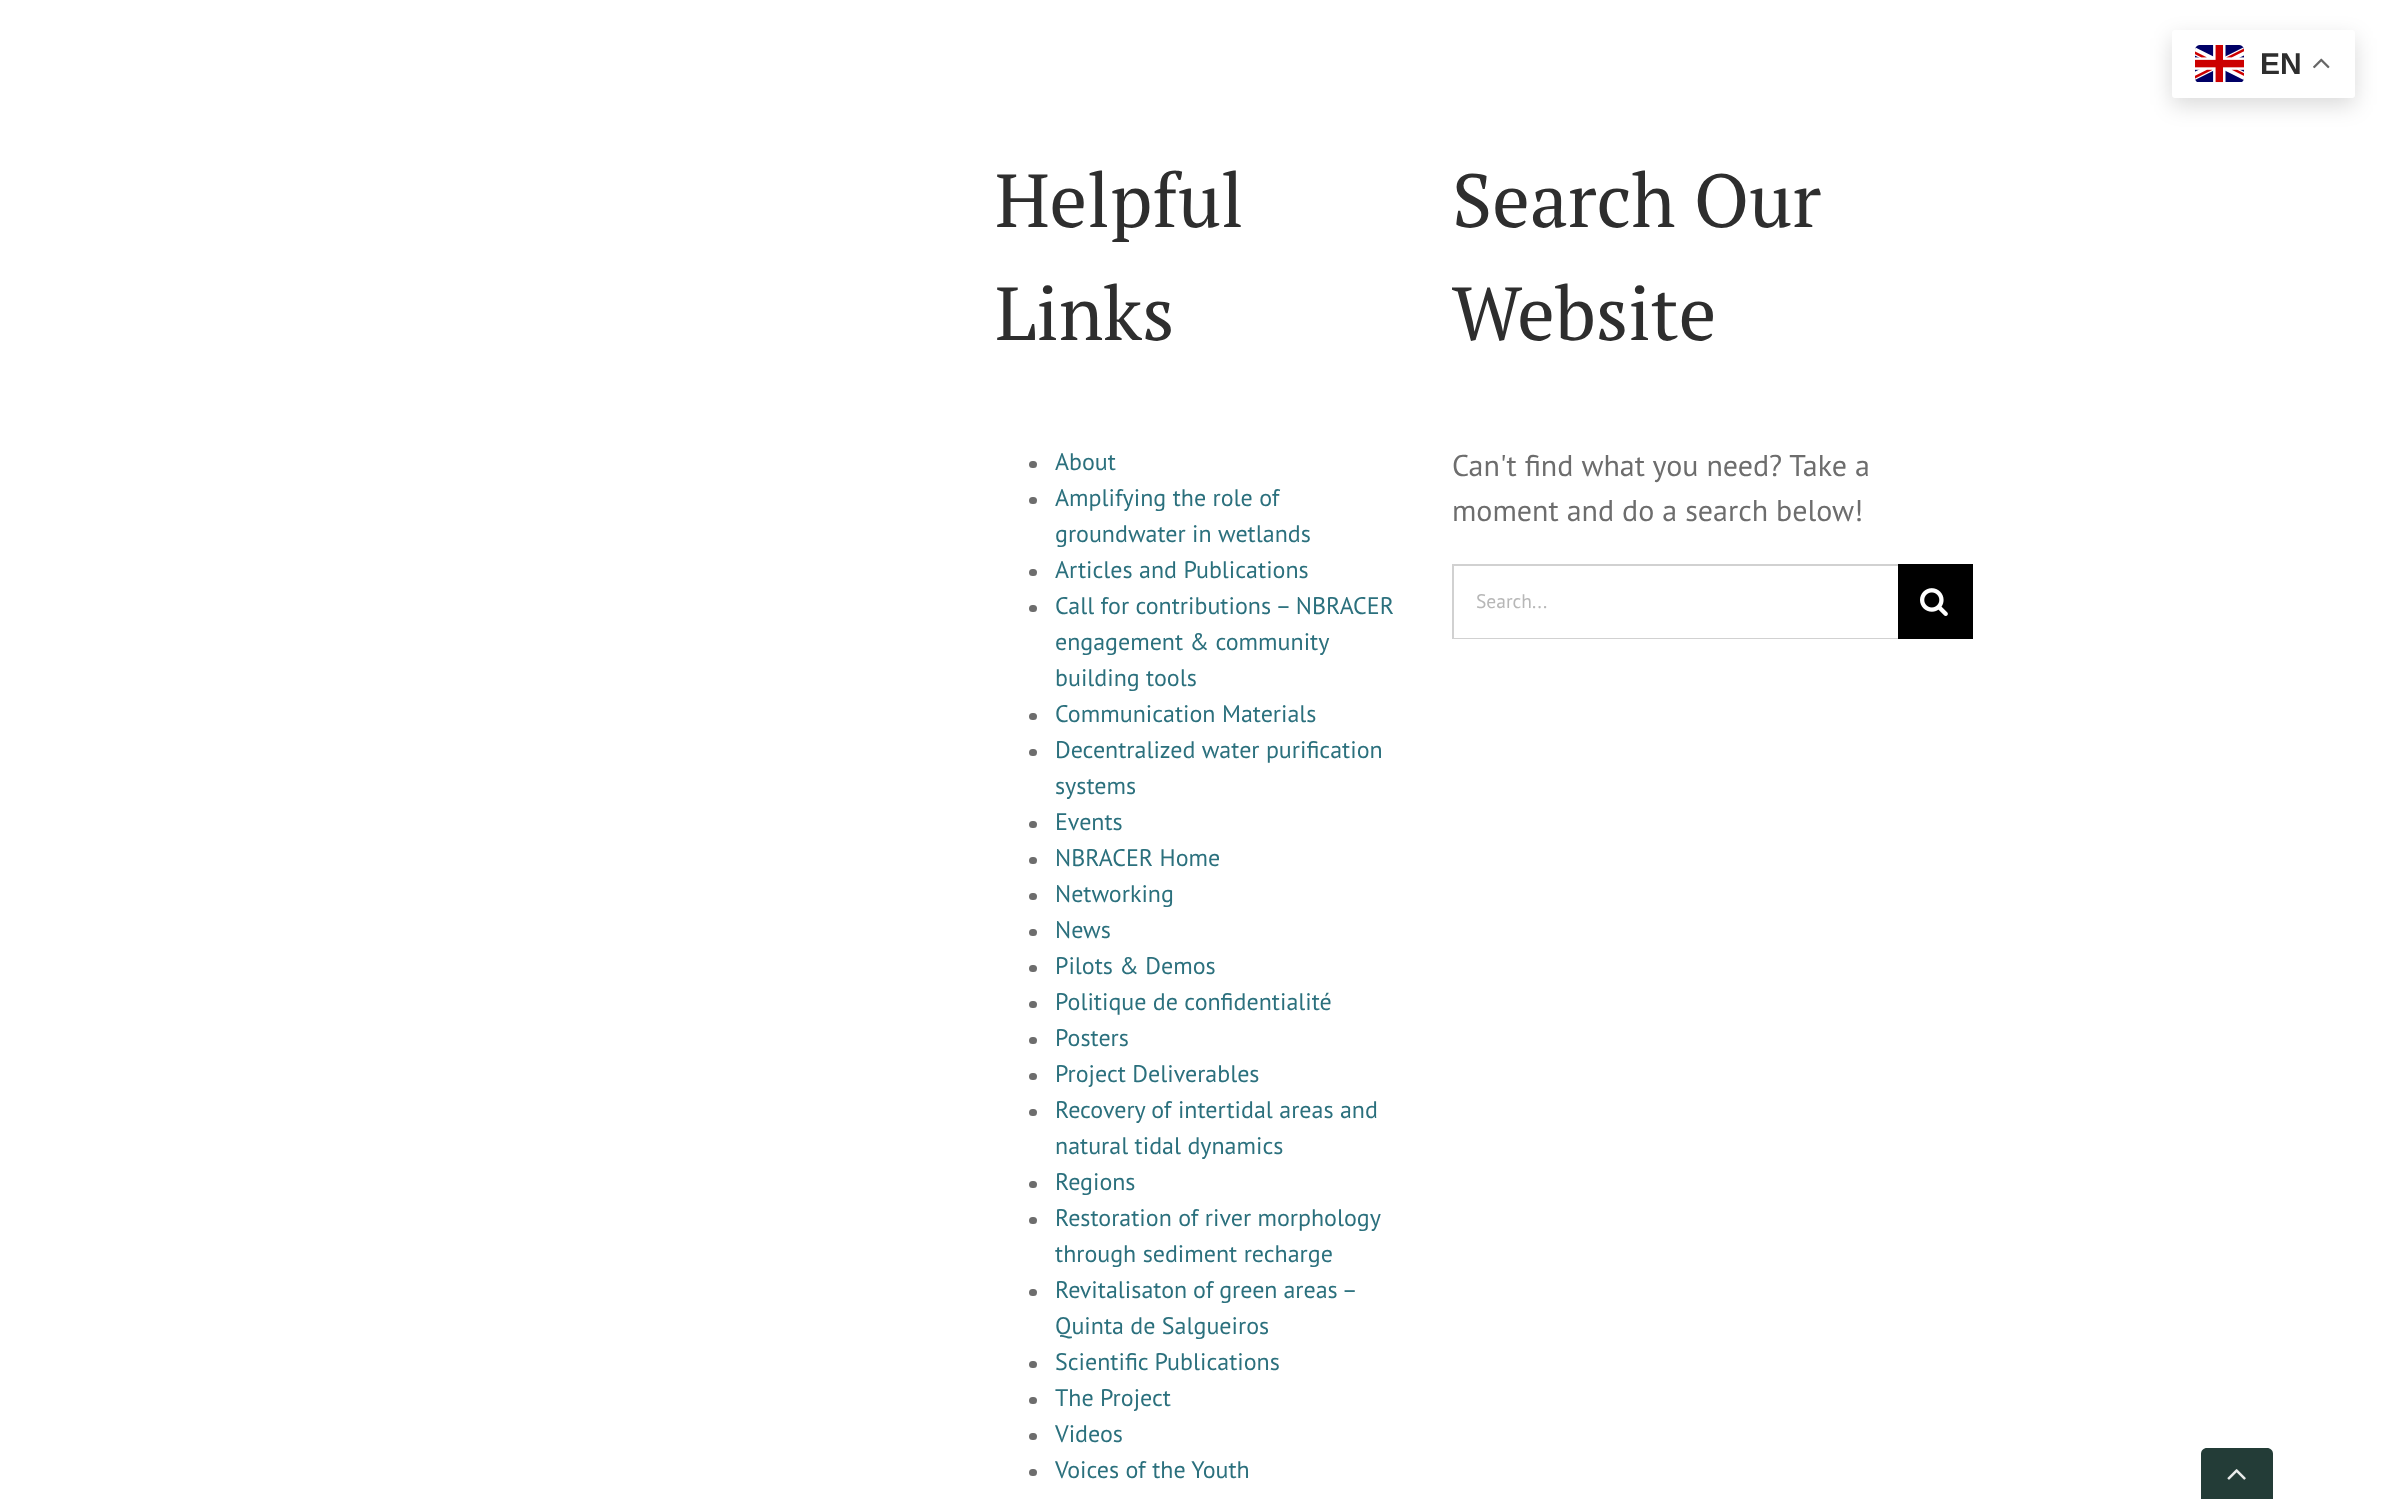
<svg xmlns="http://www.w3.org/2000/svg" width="2384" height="1499">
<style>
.a{font:bold 30px Liberation Sans;fill:#2e2e2e}
.b{font:75px PT Serif;fill:#2e2e2e}
.c{font:24px PT Sans;fill:#2b707d}
.d{font:30px PT Sans;fill:#6d6d6d}
.e{font:19.5px PT Sans;fill:#b7b7b7}
</style>
<rect width="100%" height="100%" fill="#fff"/>
<rect fill="#00000026" filter="blur(11px)" x="2172" y="38" width="183" height="67" rx="3"/>
<rect fill="#fff" x="2172" y="30" width="183" height="68" rx="3"/>
<image href="1.png" x="2195" y="45" width="49" height="38"/>
<image href="2.png" x="2313" y="58" width="17" height="11"/>
<rect fill="#6d6d6d" x="1029" y="461" width="8" height="7" rx="3.5"/>
<rect fill="#6d6d6d" x="1029" y="497" width="8" height="7" rx="3.5"/>
<rect fill="#6d6d6d" x="1029" y="569" width="8" height="7" rx="3.5"/>
<rect fill="#6d6d6d" x="1029" y="605" width="8" height="7" rx="3.5"/>
<rect fill="#6d6d6d" x="1029" y="713" width="8" height="7" rx="3.5"/>
<rect fill="#6d6d6d" x="1029" y="749" width="8" height="7" rx="3.5"/>
<rect fill="#6d6d6d" x="1029" y="821" width="8" height="7" rx="3.5"/>
<rect fill="#6d6d6d" x="1029" y="857" width="8" height="7" rx="3.5"/>
<rect fill="#6d6d6d" x="1029" y="893" width="8" height="7" rx="3.5"/>
<rect fill="#6d6d6d" x="1029" y="929" width="8" height="7" rx="3.5"/>
<rect fill="#6d6d6d" x="1029" y="965" width="8" height="7" rx="3.5"/>
<rect fill="#6d6d6d" x="1029" y="1001" width="8" height="7" rx="3.5"/>
<rect fill="#6d6d6d" x="1029" y="1037" width="8" height="7" rx="3.5"/>
<rect fill="#6d6d6d" x="1029" y="1073" width="8" height="7" rx="3.5"/>
<rect fill="#6d6d6d" x="1029" y="1109" width="8" height="7" rx="3.5"/>
<rect fill="#6d6d6d" x="1029" y="1181" width="8" height="7" rx="3.5"/>
<rect fill="#6d6d6d" x="1029" y="1217" width="8" height="7" rx="3.5"/>
<rect fill="#6d6d6d" x="1029" y="1289" width="8" height="7" rx="3.5"/>
<rect fill="#6d6d6d" x="1029" y="1361" width="8" height="7" rx="3.5"/>
<rect fill="#6d6d6d" x="1029" y="1397" width="8" height="7" rx="3.5"/>
<rect fill="#6d6d6d" x="1029" y="1433" width="8" height="7" rx="3.5"/>
<rect fill="#6d6d6d" x="1029" y="1469" width="8" height="7" rx="3.5"/>
<path fill="#d1d1d1" d="M1452 564h446v2H1452z"/>
<path fill="#d1d1d1" d="M1452 638h446v1H1452z"/>
<path fill="#d1d1d1" d="M1452 564h2v75H1452z"/>
<path fill="#000" d="M1898 564h75v75H1898z"/>
<image href="3.png" x="1920" y="588" width="28" height="28"/>
<path fill="#233c37" d="M2207 1448h60c3.5 0 6 2.5 6 6v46h-72v-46c0-3.5 2.5-6 6-6z"/>
<image href="4.png" x="2227" y="1469" width="19" height="11"/>
<text class="a" x="2260" y="74">EN</text>
<text class="b" x="995" y="227">Helpful</text>
<text class="b" x="995" y="340">Links</text>
<text class="c" x="1055" y="470">About</text>
<text class="c" x="1055" y="506">Amplifying the role of</text>
<text class="c" x="1055" y="542">groundwater in wetlands</text>
<text class="c" x="1055" y="578">Articles and Publications</text>
<text class="c" x="1055" y="614">Call for contributions – NBRACER</text>
<text class="c" x="1055" y="650">engagement &amp; community</text>
<text class="c" x="1055" y="686">building tools</text>
<text class="c" x="1055" y="722">Communication Materials</text>
<text class="c" x="1055" y="758">Decentralized water purification</text>
<text class="c" x="1055" y="794">systems</text>
<text class="c" x="1055" y="830">Events</text>
<text class="c" x="1055" y="866">NBRACER Home</text>
<text class="c" x="1055" y="902">Networking</text>
<text class="c" x="1055" y="938">News</text>
<text class="c" x="1055" y="974">Pilots &amp; Demos</text>
<text class="c" x="1055" y="1010">Politique de confidentialité</text>
<text class="c" x="1055" y="1046">Posters</text>
<text class="c" x="1055" y="1082">Project Deliverables</text>
<text class="c" x="1055" y="1118">Recovery of intertidal areas and</text>
<text class="c" x="1055" y="1154">natural tidal dynamics</text>
<text class="c" x="1055" y="1190">Regions</text>
<text class="c" x="1055" y="1226">Restoration of river morphology</text>
<text class="c" x="1055" y="1262">through sediment recharge</text>
<text class="c" x="1055" y="1298" word-spacing="-0.5">Revitalisaton of green areas –</text>
<text class="c" x="1055" y="1334">Quinta de Salgueiros</text>
<text class="c" x="1055" y="1370">Scientific Publications</text>
<text class="c" x="1055" y="1406">The Project</text>
<text class="c" x="1055" y="1442">Videos</text>
<text class="c" x="1055" y="1478">Voices of the Youth</text>
<text class="b" x="1452" y="227">Search Our</text>
<text class="b" x="1452" y="340">Website</text>
<text class="d" x="1452" y="476">Can't find what you need? Take a</text>
<text class="d" x="1452" y="521">moment and do a search below!</text>
<text class="e" x="1476" y="608">Search...</text>
</svg>
